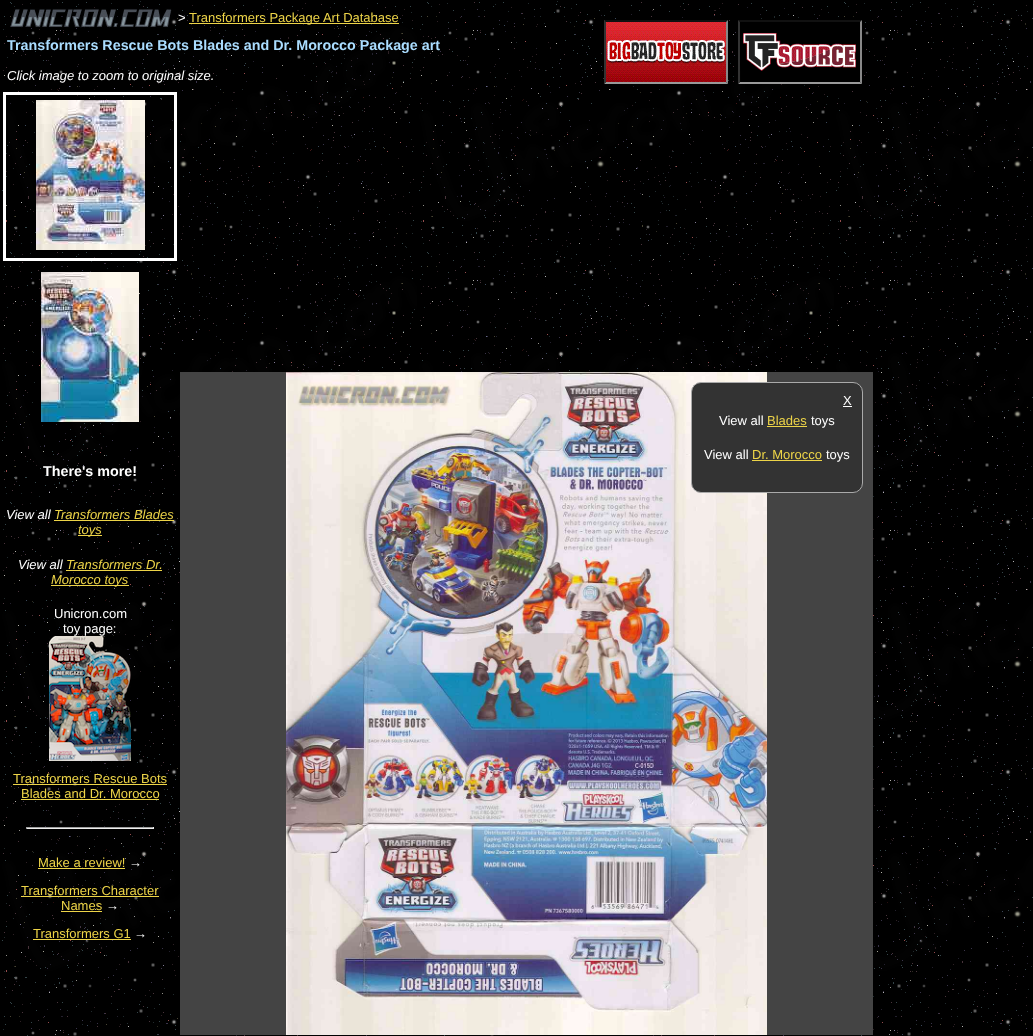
<svg xmlns="http://www.w3.org/2000/svg" width="1033" height="1036">
<style>
.a{font:13px Liberation Sans;fill:#fff}
.b{font:13px Liberation Sans;fill:#edd448}
.c{font:bold 14.3px Liberation Sans;fill:#adf}
.d{font:italic 13px Liberation Sans;fill:#fff}
.e{font:bold 14.3px Liberation Sans;fill:#fff}
.f{font:italic 13px Liberation Sans;fill:#edd448}
</style>
<rect width="100%" height="100%" fill="#000"/>
<image href="1.png" x="2" y="1" width="1031" height="1035"/>
<image href="2.png" x="10" y="8" width="162" height="20"/>
<path fill="#edd448" d="M189 23h210v1H189z"/>
<path fill="#111" d="M604 20h124l-2 2h-120z"/>
<path fill="#888" d="M728 20v64l-2-2v-60z"/>
<path fill="#999" d="M728 84h-124l2-2h120z"/>
<path fill="#333" d="M604 84v-64l2 2v60z"/>
<path fill="#111" d="M738 20h124l-2 2h-120z"/>
<image href="3.png" x="606" y="22" width="120" height="60"/>
<path fill="#888" d="M862 20v64l-2-2v-60z"/>
<path fill="#999" d="M862 84h-124l2-2h120z"/>
<path fill="#333" d="M738 84v-64l2 2v60z"/>
<image href="4.png" x="741" y="22" width="119" height="60"/>
<path fill="#444" d="M180 372h693v663H180z"/>
<image href="5.png" x="286" y="372" width="481" height="663"/>
<rect fill="#333" stroke="#aaa" x="691.5" y="382.5" width="171" height="110" rx="9.5"/>
<path fill="#fff" d="M843 406h9v1H843z"/>
<path fill="#edd448" d="M767 426h40v1H767z"/>
<path fill="#edd448" d="M752 460h70v1H752z"/>
<path fill="none" stroke="#fff" stroke-width="3" d="M4.5 93.5h171v166H4.5z"/>
<image href="6.png" x="36" y="100" width="109" height="150"/>
<image href="7.png" x="41" y="272" width="98" height="150"/>
<path fill="#edd448" d="M54 520h120v1H54z"/>
<path fill="#edd448" d="M78 535h24v1H78z"/>
<path fill="#edd448" d="M66 570h96v1H66z"/>
<path fill="#edd448" d="M51 585h78v1H51z"/>
<image href="8.png" x="49" y="636" width="82" height="125"/>
<path fill="#edd448" d="M13 784h154v1H13z"/>
<path fill="#edd448" d="M21 799h138v1H21z"/>
<path fill="#9f9f9f" d="M26 827h128v1H26z"/>
<path fill="#eee" d="M153 827h1v2H153z"/>
<path fill="#eee" d="M26 828h128v1H26z"/>
<path fill="#9f9f9f" d="M26 827h1v2H26z"/>
<path fill="#edd448" d="M38 868h87v1H38z"/>
<path fill="#edd448" d="M21 896h138v1H21z"/>
<path fill="#edd448" d="M61 911h41v1H61z"/>
<path fill="#edd448" d="M33 939h98v1H33z"/>
<text class="a" x="178" y="22">&gt;</text>
<text class="b" x="189" y="22">Transformers Package Art Database</text>
<text class="c" x="7" y="50">Transformers Rescue Bots Blades and Dr. Morocco Package art</text>
<text class="d" x="7" y="80">Click image to zoom to original size.</text>
<text class="a" x="843" y="405">X</text>
<text class="a" x="719" y="425">View all</text>
<text class="b" x="767" y="425">Blades</text>
<text class="a" x="811" y="425">toys</text>
<text class="a" x="704" y="459">View all</text>
<text class="b" x="752" y="459">Dr. Morocco</text>
<text class="a" x="826" y="459">toys</text>
<text class="e" x="43" y="476">There's more!</text>
<text class="d" x="6" y="519">View all</text>
<text class="f" x="54" y="519">Transformers Blades</text>
<text class="f" x="78" y="534">toys</text>
<text class="d" x="18" y="569">View all</text>
<text class="f" x="66" y="569">Transformers Dr.</text>
<text class="f" x="51" y="584">Morocco toys</text>
<text class="a" x="54" y="618">Unicron.com</text>
<text class="a" x="63" y="633">toy page:</text>
<text class="b" x="13" y="783">Transformers Rescue Bots</text>
<text class="b" x="21" y="798">Blades and Dr. Morocco</text>
<text class="b" x="38" y="867">Make a review!</text>
<text class="a" x="129" y="867">→</text>
<text class="b" x="21" y="895">Transformers Character</text>
<text class="b" x="61" y="910">Names</text>
<text class="a" x="106" y="910">→</text>
<text class="b" x="33" y="938">Transformers G1</text>
<text class="a" x="134" y="938">→</text>
</svg>
